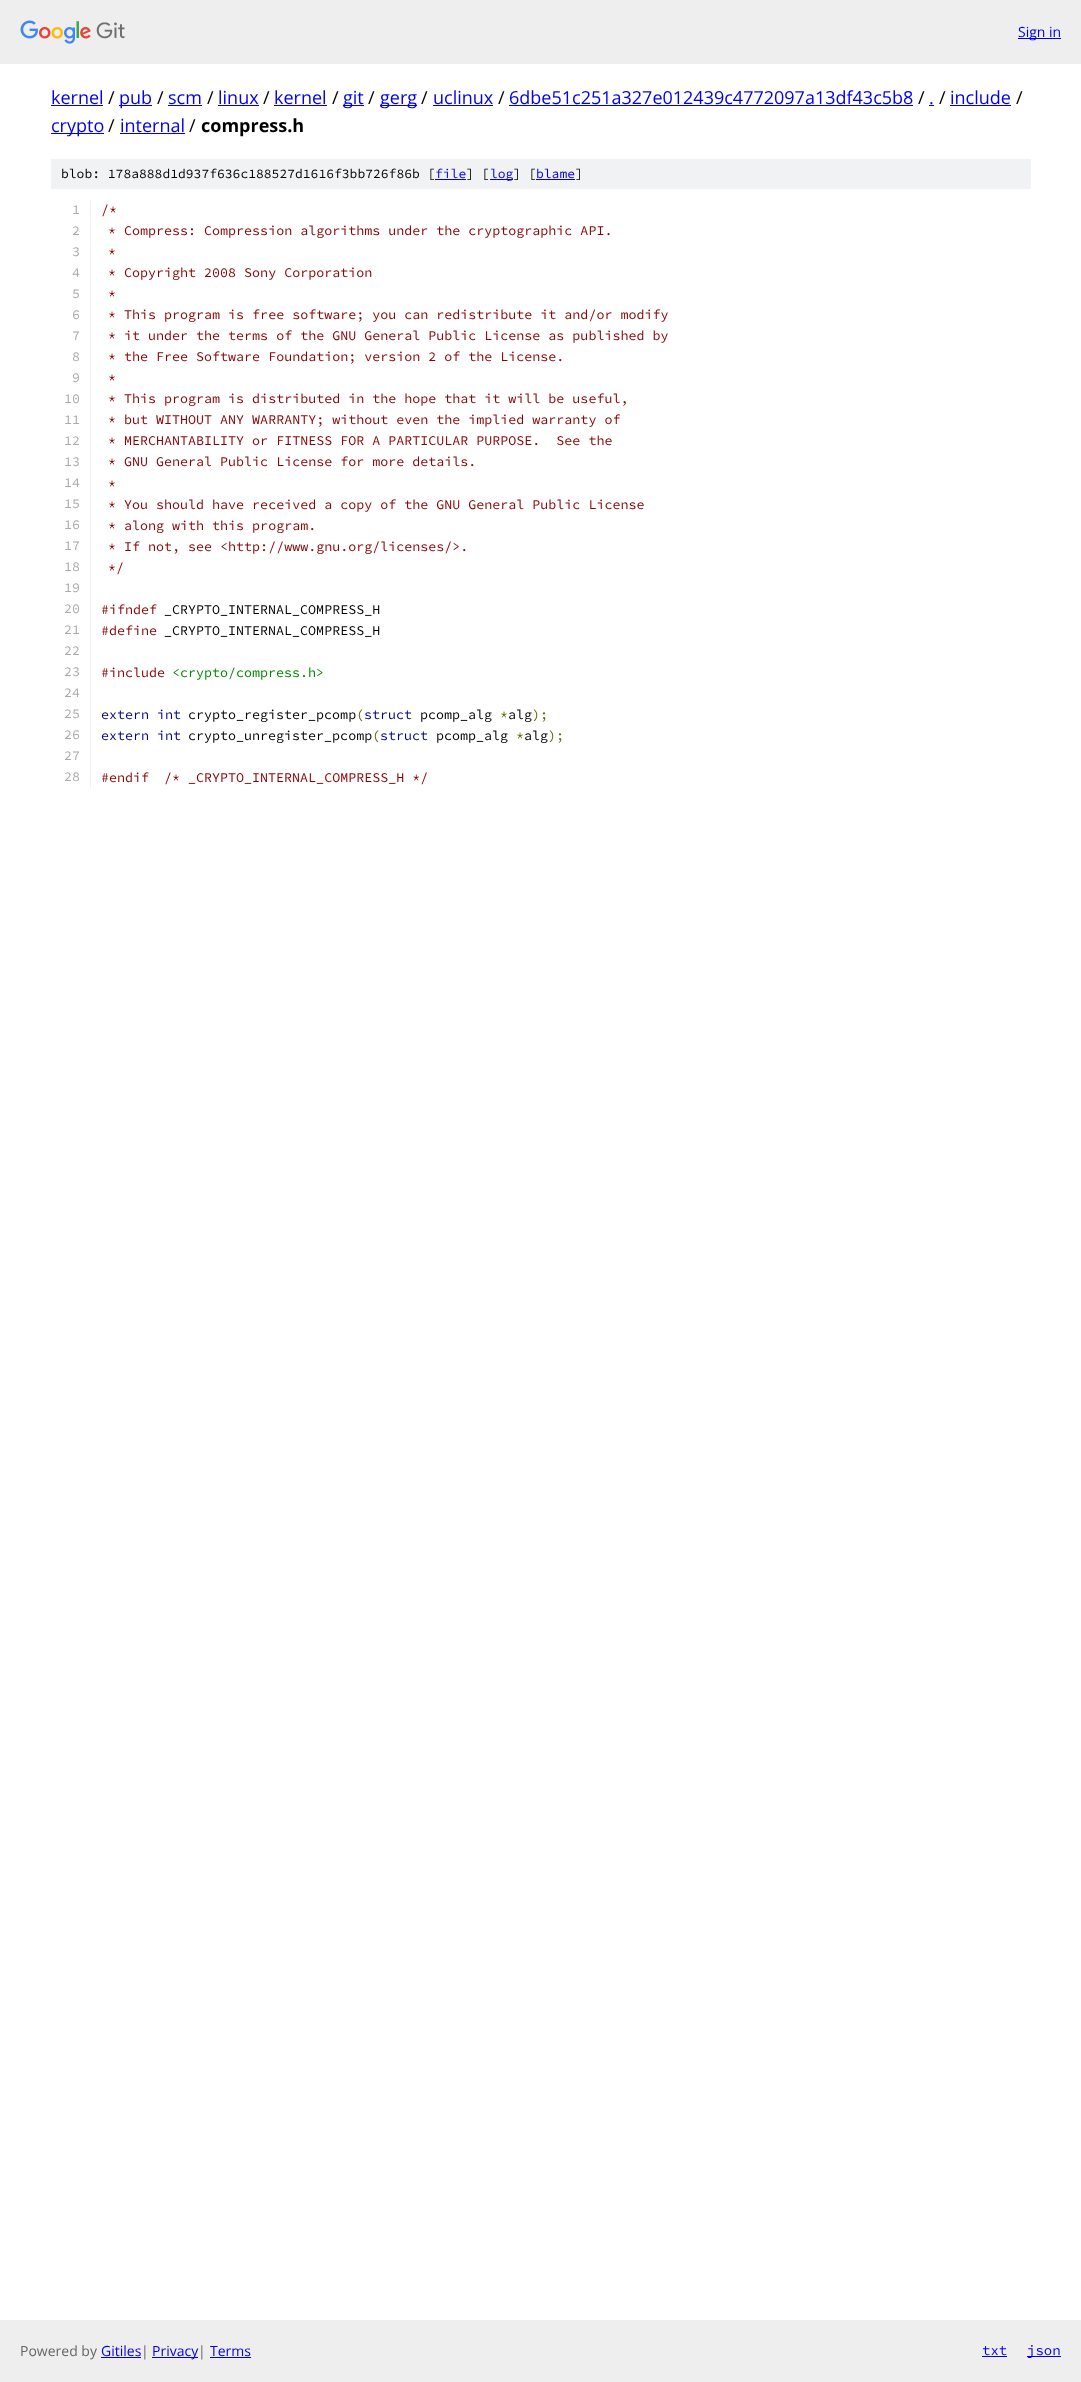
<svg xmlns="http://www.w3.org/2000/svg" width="1081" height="2382">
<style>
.a{font:14px Open Sans;fill:#00e}
.b{font:18px Open Sans;fill:#00e}
.c{font:18px Open Sans;fill:#000}
.d{font:bold 18px Open Sans;fill:#000}
.e{font:200 13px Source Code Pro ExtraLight;fill:#000}
.f{font:200 13px Source Code Pro ExtraLight;fill:#00e}
.g{font:200 13.35px Source Code Pro ExtraLight;fill:#aaa}
.h{font:200 13.35px Source Code Pro ExtraLight;fill:#800}
.i{font:200 13.35px Source Code Pro ExtraLight;fill:#000}
.j{font:200 13.35px Source Code Pro ExtraLight;fill:#080}
.k{font:200 13.35px Source Code Pro ExtraLight;fill:#008}
.l{font:200 13.35px Source Code Pro ExtraLight;fill:#660}
.m{font:14px Open Sans;fill:#666}
.n{font:200 14px Source Code Pro ExtraLight;fill:#00e}
</style>
<rect width="100%" height="100%" fill="#fff"/>
<path fill="#eee" d="M0 0h1081v64H0z"/>
<image href="1.png" x="20" y="20" width="105" height="24"/>
<path fill="#00e" d="M1018 38h43v1H1018z"/>
<path fill="#00e" d="M51 105h52v1H51z"/>
<path fill="#00e" d="M119 105h33v1H119z"/>
<path fill="#00e" d="M168 105h34v1H168z"/>
<path fill="#00e" d="M218 105h41v1H218z"/>
<path fill="#00e" d="M274 105h53v1H274z"/>
<path fill="#00e" d="M343 105h21v1H343z"/>
<path fill="#00e" d="M380 105h37v1H380z"/>
<path fill="#00e" d="M433 105h60v1H433z"/>
<path fill="#00e" d="M509 105h404v1H509z"/>
<path fill="#00e" d="M929 105h5v1H929z"/>
<path fill="#00e" d="M950 105h61v1H950z"/>
<path fill="#00e" d="M51 133h53v1H51z"/>
<path fill="#00e" d="M120 133h65v1H120z"/>
<path fill="#f1f2f3" d="M51 159h980v30H51z"/>
<path fill="#00e" d="M435 179h31v1H435z"/>
<path fill="#00e" d="M490 179h23v1H490z"/>
<path fill="#00e" d="M536 179h39v1H536z"/>
<path fill="#f1f2f3" d="M90 200h1v20H90z"/>
<path fill="#f1f2f3" d="M90 221h1v20H90z"/>
<path fill="#f1f2f3" d="M90 242h1v546H90z"/>
<path fill="#eee" d="M0 2320h1081v62H0z"/>
<path fill="#00e" d="M101 2357h40v1H101z"/>
<path fill="#00e" d="M152 2357h46v1H152z"/>
<path fill="#00e" d="M210 2357h41v1H210z"/>
<path fill="#00e" d="M982 2356h25v1H982z"/>
<path fill="#00e" d="M1027 2356h34v1H1027z"/>
<text class="a" x="1018" y="37">Sign in</text>
<text class="b" x="51" y="104">kernel</text>
<text class="c" x="108" y="104">/</text>
<text class="b" x="119" y="104">pub</text>
<text class="c" x="157" y="104">/</text>
<text class="b" x="168" y="104">scm</text>
<text class="c" x="207" y="104">/</text>
<text class="b" x="218" y="104">linux</text>
<text class="c" x="263" y="104">/</text>
<text class="b" x="274" y="104">kernel</text>
<text class="c" x="332" y="104">/</text>
<text class="b" x="343" y="104">git</text>
<text class="c" x="368" y="104">/</text>
<text class="b" x="380" y="104">gerg</text>
<text class="c" x="421" y="104">/</text>
<text class="b" x="433" y="104">uclinux</text>
<text class="c" x="498" y="104">/</text>
<text class="b" x="509" y="104">6dbe51c251a327e012439c4772097a13df43c5b8</text>
<text class="c" x="918" y="104">/</text>
<text class="b" x="929" y="104">.</text>
<text class="c" x="939" y="104">/</text>
<text class="b" x="950" y="104">include</text>
<text class="c" x="1016" y="104">/</text>
<text class="b" x="51" y="132">crypto</text>
<text class="c" x="108" y="132">/</text>
<text class="b" x="120" y="132">internal</text>
<text class="c" x="189" y="132">/</text>
<text class="d" x="201" y="132">compress.h</text>
<text class="e" x="61" y="178">blob: 178a888d1d937f636c188527d1616f3bb726f86b [</text>
<text class="f" x="435" y="178">file</text>
<text class="e" x="466" y="178">] [</text>
<text class="f" x="490" y="178">log</text>
<text class="e" x="513" y="178">] [</text>
<text class="f" x="536" y="178">blame</text>
<text class="e" x="575" y="178">]</text>
<text class="g" x="72" y="214">1</text>
<text class="h" x="101" y="214">/*</text>
<text class="g" x="72" y="235">2</text>
<text class="h" x="108" y="235">* Compress: Compression algorithms under the cryptographic API.</text>
<text class="g" x="72" y="256">3</text>
<text class="h" x="108" y="256">*</text>
<text class="g" x="72" y="277">4</text>
<text class="h" x="108" y="277">* Copyright 2008 Sony Corporation</text>
<text class="g" x="72" y="298">5</text>
<text class="h" x="108" y="298">*</text>
<text class="g" x="72" y="319">6</text>
<text class="h" x="108" y="319">* This program is free software; you can redistribute it and/or modify</text>
<text class="g" x="72" y="340">7</text>
<text class="h" x="108" y="340">* it under the terms of the GNU General Public License as published by</text>
<text class="g" x="72" y="361">8</text>
<text class="h" x="108" y="361">* the Free Software Foundation; version 2 of the License.</text>
<text class="g" x="72" y="382">9</text>
<text class="h" x="108" y="382">*</text>
<text class="g" x="64" y="403">10</text>
<text class="h" x="108" y="403">* This program is distributed in the hope that it will be useful,</text>
<text class="g" x="64" y="424">11</text>
<text class="h" x="108" y="424">* but WITHOUT ANY WARRANTY; without even the implied warranty of</text>
<text class="g" x="64" y="445">12</text>
<text class="h" xml:space="preserve" x="108" y="445">* MERCHANTABILITY or FITNESS FOR A PARTICULAR PURPOSE.  See the</text>
<text class="g" x="64" y="466">13</text>
<text class="h" x="108" y="466">* GNU General Public License for more details.</text>
<text class="g" x="64" y="487">14</text>
<text class="h" x="108" y="488">*</text>
<text class="g" x="64" y="508">15</text>
<text class="h" x="108" y="509">* You should have received a copy of the GNU General Public License</text>
<text class="g" x="64" y="529">16</text>
<text class="h" x="108" y="530">* along with this program.</text>
<text class="g" x="64" y="550">17</text>
<text class="h" x="108" y="551">* If not, see &lt;http://www.gnu.org/licenses/&gt;.</text>
<text class="g" x="64" y="571">18</text>
<text class="h" x="108" y="572">*/</text>
<text class="g" x="64" y="592">19</text>
<text class="g" x="64" y="613">20</text>
<text class="h" x="101" y="614">#ifndef</text>
<text class="i" x="164" y="614">_CRYPTO_INTERNAL_COMPRESS_H</text>
<text class="g" x="64" y="634">21</text>
<text class="h" x="101" y="635">#define</text>
<text class="i" x="164" y="635">_CRYPTO_INTERNAL_COMPRESS_H</text>
<text class="g" x="64" y="655">22</text>
<text class="g" x="64" y="676">23</text>
<text class="h" x="101" y="677">#include</text>
<text class="j" x="172" y="677">&lt;crypto/compress.h&gt;</text>
<text class="g" x="64" y="697">24</text>
<text class="g" x="64" y="718">25</text>
<text class="k" x="101" y="719">extern int</text>
<text class="i" x="188" y="719">crypto_register_pcomp</text>
<text class="l" x="356" y="719">(</text>
<text class="k" x="364" y="719">struct</text>
<text class="i" x="420" y="719">pcomp_alg</text>
<text class="l" x="500" y="719">*</text>
<text class="i" x="508" y="719">alg</text>
<text class="l" x="532" y="719">);</text>
<text class="g" x="64" y="739">26</text>
<text class="k" x="101" y="740">extern int</text>
<text class="i" x="188" y="740">crypto_unregister_pcomp</text>
<text class="l" x="372" y="740">(</text>
<text class="k" x="380" y="740">struct</text>
<text class="i" x="436" y="740">pcomp_alg</text>
<text class="l" x="516" y="740">*</text>
<text class="i" x="524" y="740">alg</text>
<text class="l" x="548" y="740">);</text>
<text class="g" x="64" y="760">27</text>
<text class="g" x="64" y="781">28</text>
<text class="h" x="101" y="782">#endif</text>
<text class="h" x="164" y="782">/* _CRYPTO_INTERNAL_COMPRESS_H */</text>
<text class="m" x="20" y="2356">Powered by</text>
<text class="a" x="101" y="2356">Gitiles</text>
<text class="m" x="141" y="2356">|</text>
<text class="a" x="152" y="2356">Privacy</text>
<text class="m" x="198" y="2356">|</text>
<text class="a" x="210" y="2356">Terms</text>
<text class="n" x="982" y="2355">txt</text>
<text class="n" x="1027" y="2355">json</text>
</svg>
